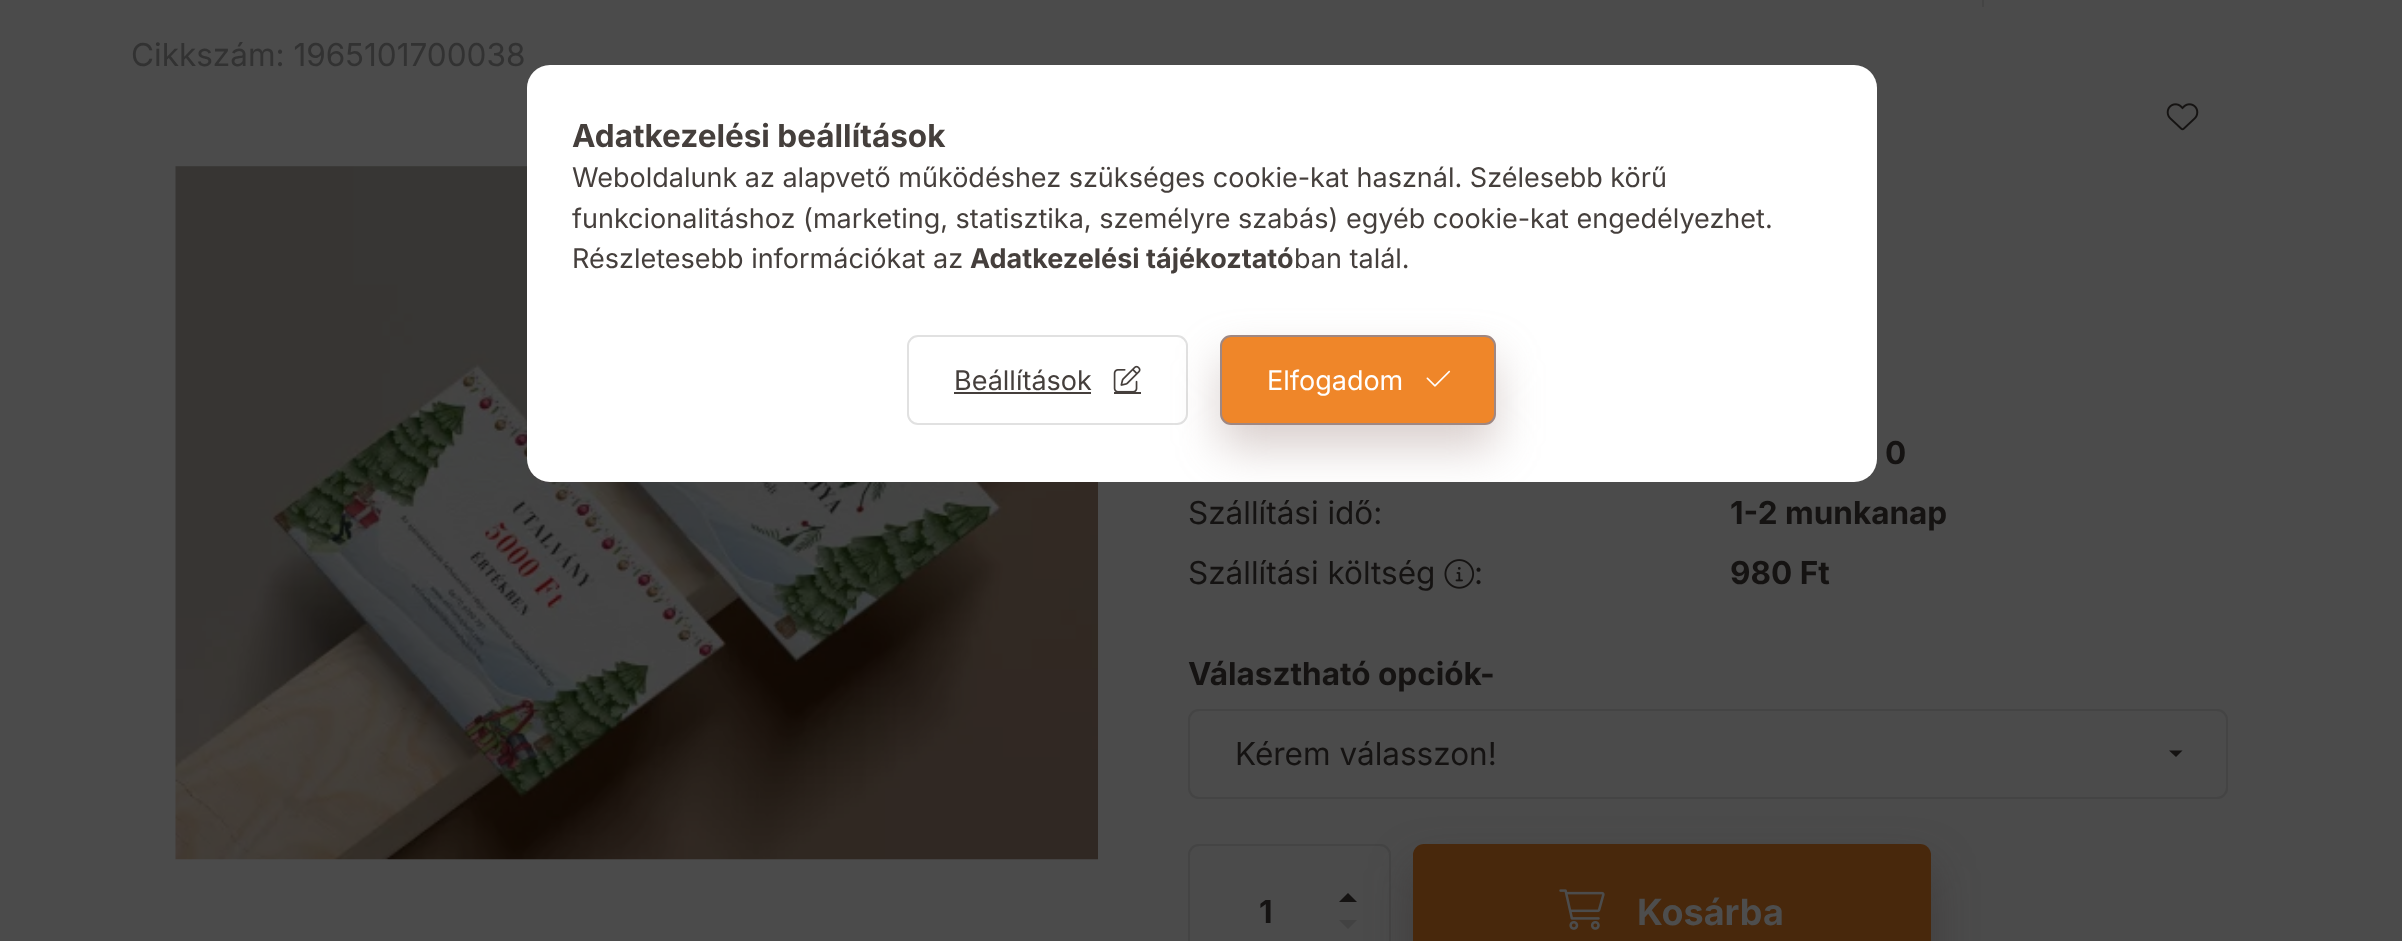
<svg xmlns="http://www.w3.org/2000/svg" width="2402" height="941">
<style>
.a{font:31.5px Inter;fill:#323232}
.b{font:bold 31.5px Inter;fill:#151312}
.c{font:31.5px Inter;fill:#151312}
.d{font:bold 36px Inter;fill:#4d4d4d}
.e{font:bold 31.5px Inter;fill:#453f3c}
.f{font:27px Inter;fill:#453f3c}
.g{font:bold 27px Inter;fill:#453f3c}
.h{font:27px Inter;fill:#fff}
</style>
<defs>
<clipPath id="clip1"><rect x="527" y="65" width="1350" height="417" rx="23"/></clipPath>
</defs>
<rect width="100%" height="100%" fill="#4b4b4b"/>
<path fill="#444" d="M1982 0h2v7H1982z"/>
<image href="1.png" x="2166" y="103" width="33" height="28"/>
<image href="2.png" x="175" y="166" width="923" height="694"/>
<image href="3.png" x="1444" y="559" width="31" height="30"/>
<rect fill="none" stroke="#444" stroke-width="2" x="1189" y="710" width="1038" height="88" rx="10"/>
<path fill="#151312" d="M2169 750.5h13.5l-6.5 6.5z"/>
<rect fill="none" stroke="#444" stroke-width="2" x="1189" y="845" width="201" height="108" rx="10"/>
<path fill="#151312" d="M1357 902h-18l9-9z"/>
<path fill="#424242" d="M1339 920h18l-9 9z"/>
<rect fill="#30292766" filter="blur(22.5px)" x="1413" y="866" width="518" height="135" rx="11"/>
<rect fill="#48280c" x="1413" y="844" width="518" height="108" rx="11"/>
<image href="4.png" x="1559" y="889" width="46" height="41"/>
<rect fill="#fff" x="527" y="65" width="1350" height="417" rx="23"/>
<rect fill="none" stroke="#e1e1e1" stroke-width="2" x="908" y="336" width="279" height="88" rx="10"/>
<path fill="#453f3c" d="M954 392h137v2H954z"/>
<image href="5.png" x="1113" y="365" width="28" height="27"/>
<path fill="#453f3c" d="M1114 392h27v2H1114z"/>
<g clip-path="url(#clip1)">
<rect fill="#9f878266" filter="blur(22.5px)" x="1220" y="358" width="276" height="90" rx="11"/>
</g>
<rect fill="#ef8629" stroke="#9f8782" stroke-width="2" x="1221" y="336" width="274" height="88" rx="10"/>
<image href="6.png" x="1426" y="370" width="25" height="17"/>
<text class="a" x="131" y="66">Cikkszám: 1965101700038</text>
<text class="b" x="1885" y="464">0</text>
<text class="c" x="1188" y="524">Szállítási idő:</text>
<text class="b" x="1730" y="524">1-2 munkanap</text>
<text class="c" x="1188" y="584">Szállítási költség</text>
<text class="c" x="1474" y="584">:</text>
<text class="b" x="1730" y="584">980 Ft</text>
<text class="b" x="1188" y="685">Választható opciók-</text>
<text class="c" x="1235" y="765">Kérem válasszon!</text>
<text class="b" x="1259" y="923">1</text>
<text class="d" x="1637" y="925">Kosárba</text>
<text class="e" x="572" y="147">Adatkezelési beállítások</text>
<text class="f" x="572" y="187">Weboldalunk az alapvető működéshez szükséges cookie-kat használ. Szélesebb körű</text>
<text class="f" x="572" y="228">funkcionalitáshoz (marketing, statisztika, személyre szabás) egyéb cookie-kat engedélyezhet.</text>
<text class="f" x="572" y="268">Részletesebb információkat az</text>
<text class="g" x="970" y="268">Adatkezelési tájékoztató</text>
<text class="f" x="1294" y="268">ban talál.</text>
<text class="f" x="954" y="390">Beállítások</text>
<text class="h" x="1267" y="390">Elfogadom</text>
</svg>
